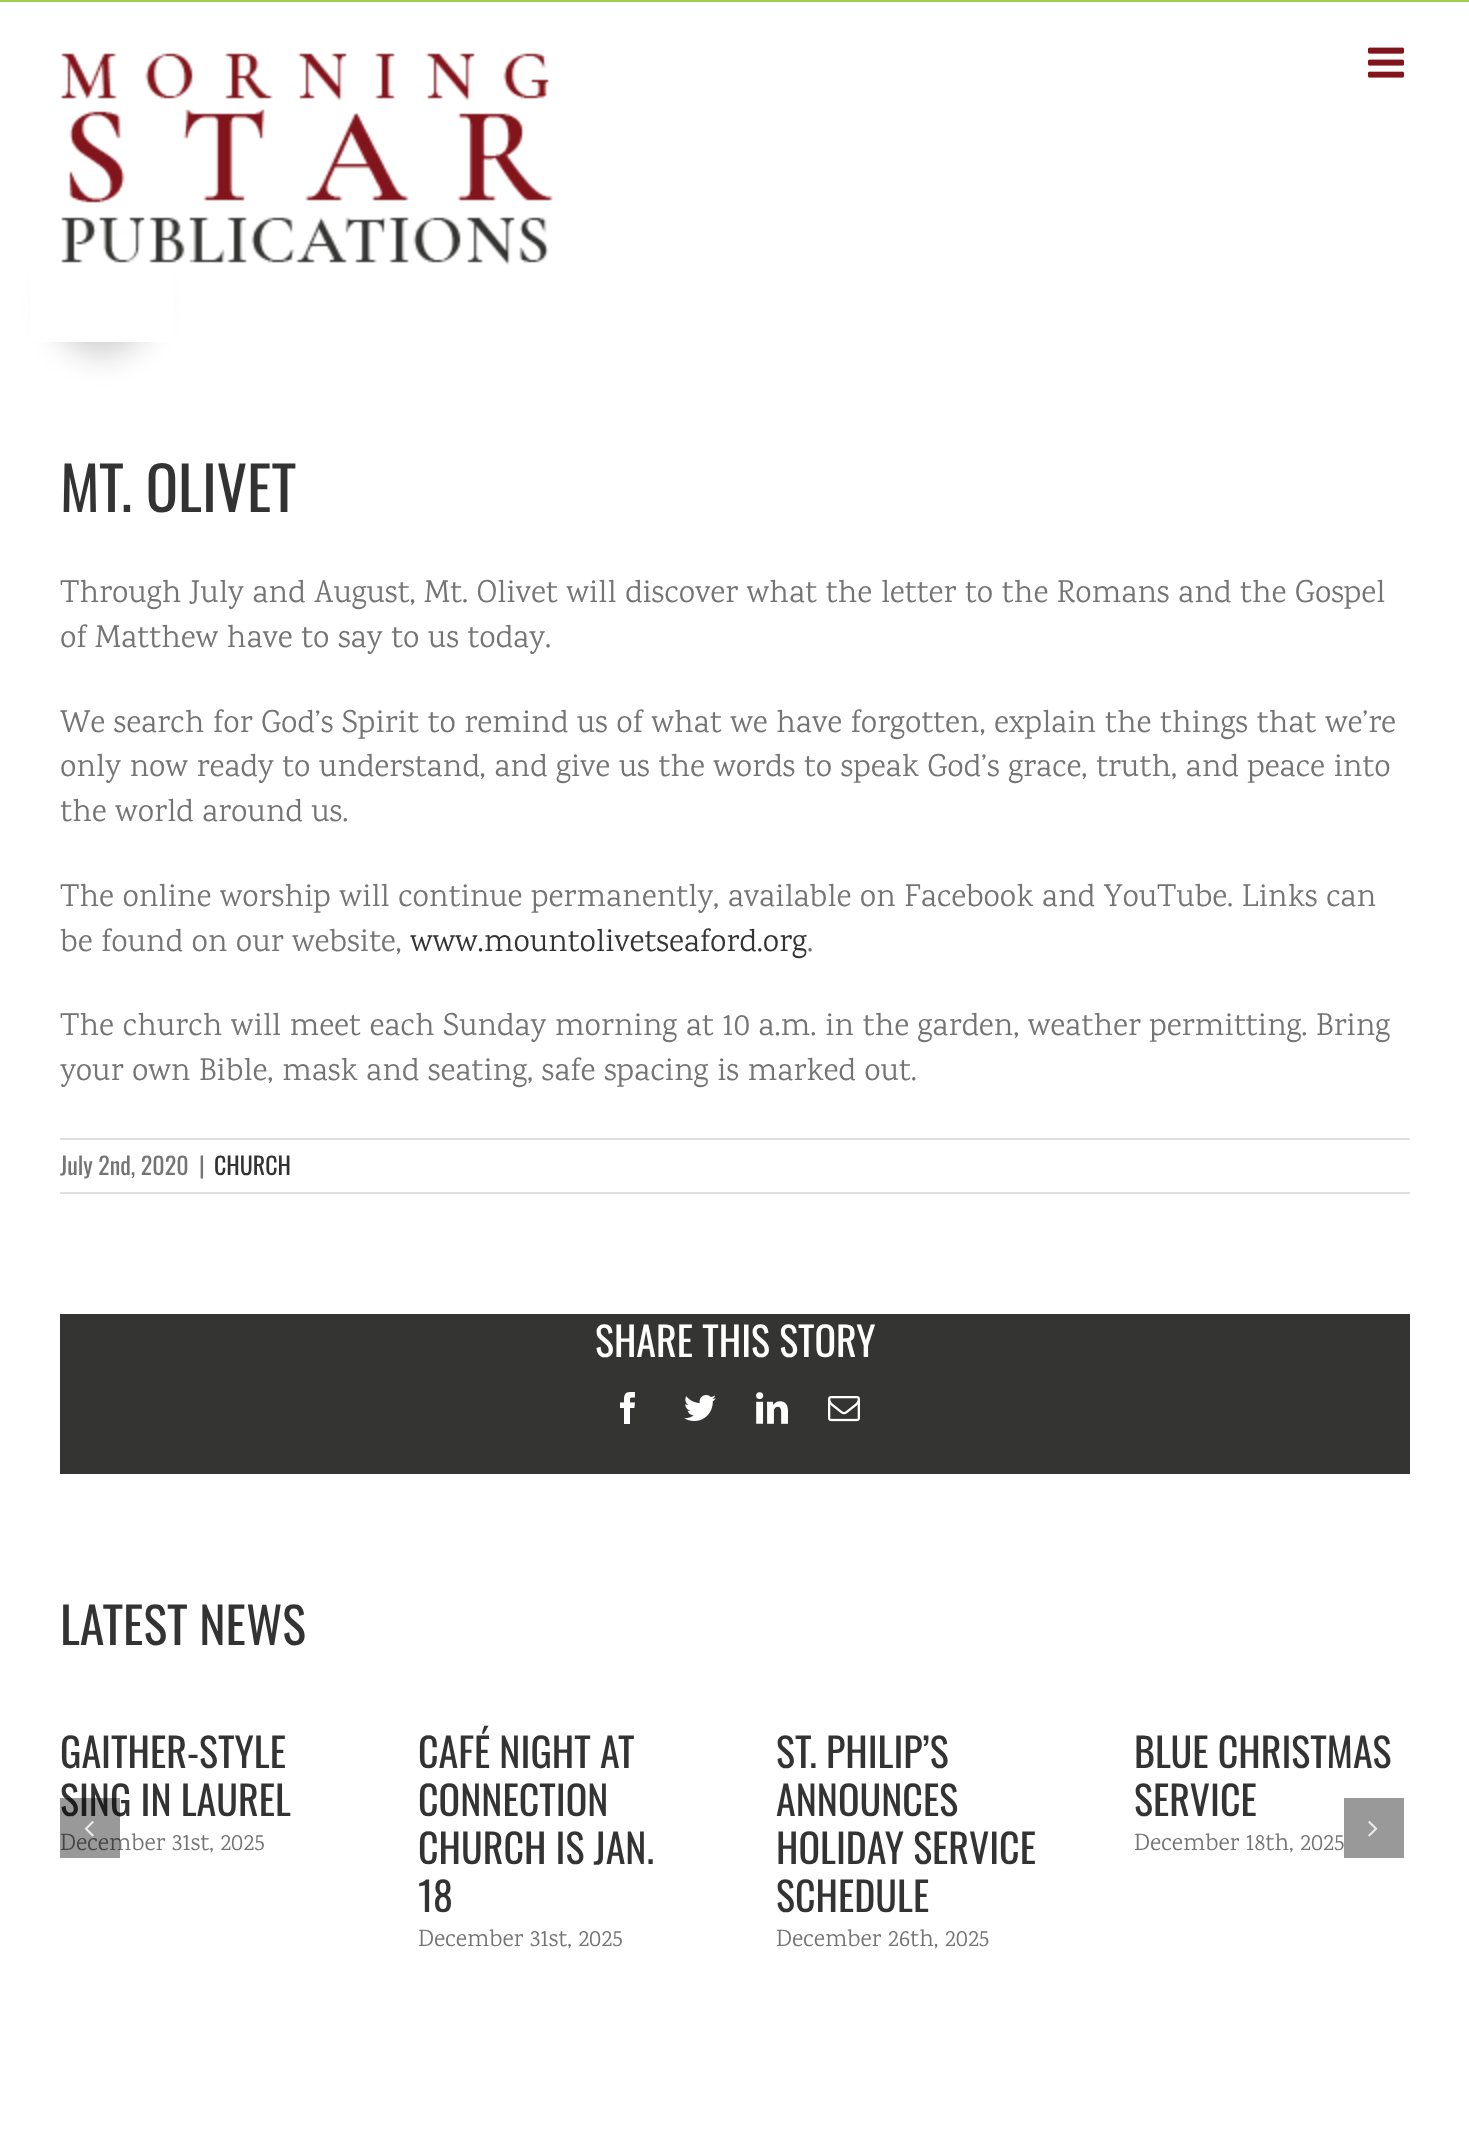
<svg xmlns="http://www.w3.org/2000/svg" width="1469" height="2133">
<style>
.a{font:60px Oswald;fill:#333}
.b{font:32px Karma;fill:#747474}
.c{font:32px Karma;fill:#333}
.d{font:24px Oswald;fill:#747474}
.e{font:24px Oswald;fill:#333}
.f{font:40px Oswald;fill:#fff}
.g{font:50px Oswald;fill:#333}
.h{font:40px Oswald;fill:#333}
.i{font:24px Karma;fill:#747474}
</style>
<rect width="100%" height="100%" fill="#fff"/>
<rect fill="#00000033" filter="blur(16px)" x="54" y="258" width="96" height="96" rx="48"/>
<path fill="#a0ce4e" d="M0 0h1469v2H0z"/>
<path fill="#fff" d="M30 234h144v108H30z"/>
<image href="1.png" x="60" y="53" width="493" height="212"/>
<image href="2.png" x="1368" y="47" width="36" height="31"/>
<path fill="#e0dede" d="M60 1138h1350v2H60z"/>
<path fill="#e0dede" d="M60 1192h1350v2H60z"/>
<path fill="#343433" d="M60 1314h1350v160H60z"/>
<image href="3.png" x="620" y="1392" width="15" height="32"/>
<image href="4.png" x="684" y="1395" width="32" height="26"/>
<image href="5.png" x="756" y="1392" width="32" height="32"/>
<image href="6.png" x="828" y="1396" width="32" height="26"/>
<path fill="#999" d="M1344 1798h60v60H1344z"/>
<image href="8.png" x="1368" y="1821" width="10" height="16"/>
<text class="a" x="60" y="512">MT. OLIVET</text>
<text class="b" x="60" y="602">Through July and August, Mt. Olivet will discover what the letter to the Romans and the Gospel</text>
<text class="b" x="60" y="647">of Matthew have to say to us today.</text>
<text class="b" x="60" y="732">We search for God’s Spirit to remind us of what we have forgotten, explain the things that we’re</text>
<text class="b" x="60" y="776">only now ready to understand, and give us the words to speak God’s grace, truth, and peace into</text>
<text class="b" x="60" y="821">the world around us.</text>
<text class="b" x="60" y="906">The online worship will continue permanently, available on Facebook and YouTube. Links can</text>
<text class="b" x="60" y="951">be found on our website,</text>
<text class="c" x="410" y="951">www.mountolivetseaford.org</text>
<text class="b" x="807" y="951">.</text>
<text class="b" x="60" y="1035">The church will meet each Sunday morning at 10 a.m. in the garden, weather permitting. Bring</text>
<text class="b" x="60" y="1080">your own Bible, mask and seating, safe spacing is marked out.</text>
<text class="d" x="60" y="1175">July 2nd, 2020</text>
<text class="d" x="199" y="1175">|</text>
<text class="e" x="214" y="1175">CHURCH</text>
<text class="f" x="595" y="1357">SHARE THIS STORY</text>
<text class="g" x="60" y="1645">LATEST NEWS</text>
<text class="h" x="60" y="1768">GAITHER-STYLE</text>
<text class="h" x="60" y="1816">SING IN LAUREL</text>
<text class="i" x="60" y="1850">December 31st, 2025</text>
<text class="h" x="418" y="1768">CAFÉ NIGHT AT</text>
<text class="h" x="418" y="1816">CONNECTION</text>
<text class="h" x="418" y="1864">CHURCH IS JAN.</text>
<text class="h" x="418" y="1912">18</text>
<text class="i" x="418" y="1946">December 31st, 2025</text>
<text class="h" x="776" y="1768">ST. PHILIP’S</text>
<text class="h" x="776" y="1816">ANNOUNCES</text>
<text class="h" x="776" y="1864">HOLIDAY SERVICE</text>
<text class="h" x="776" y="1912">SCHEDULE</text>
<text class="i" x="776" y="1946">December 26th, 2025</text>
<text class="h" x="1134" y="1768">BLUE CHRISTMAS</text>
<text class="h" x="1134" y="1816">SERVICE</text>
<text class="i" x="1134" y="1850">December 18th, 2025</text>
<path fill="#00000066" d="M60 1798h60v60H60z"/>
<image href="7.png" x="84" y="1821" width="10" height="16"/>
</svg>
